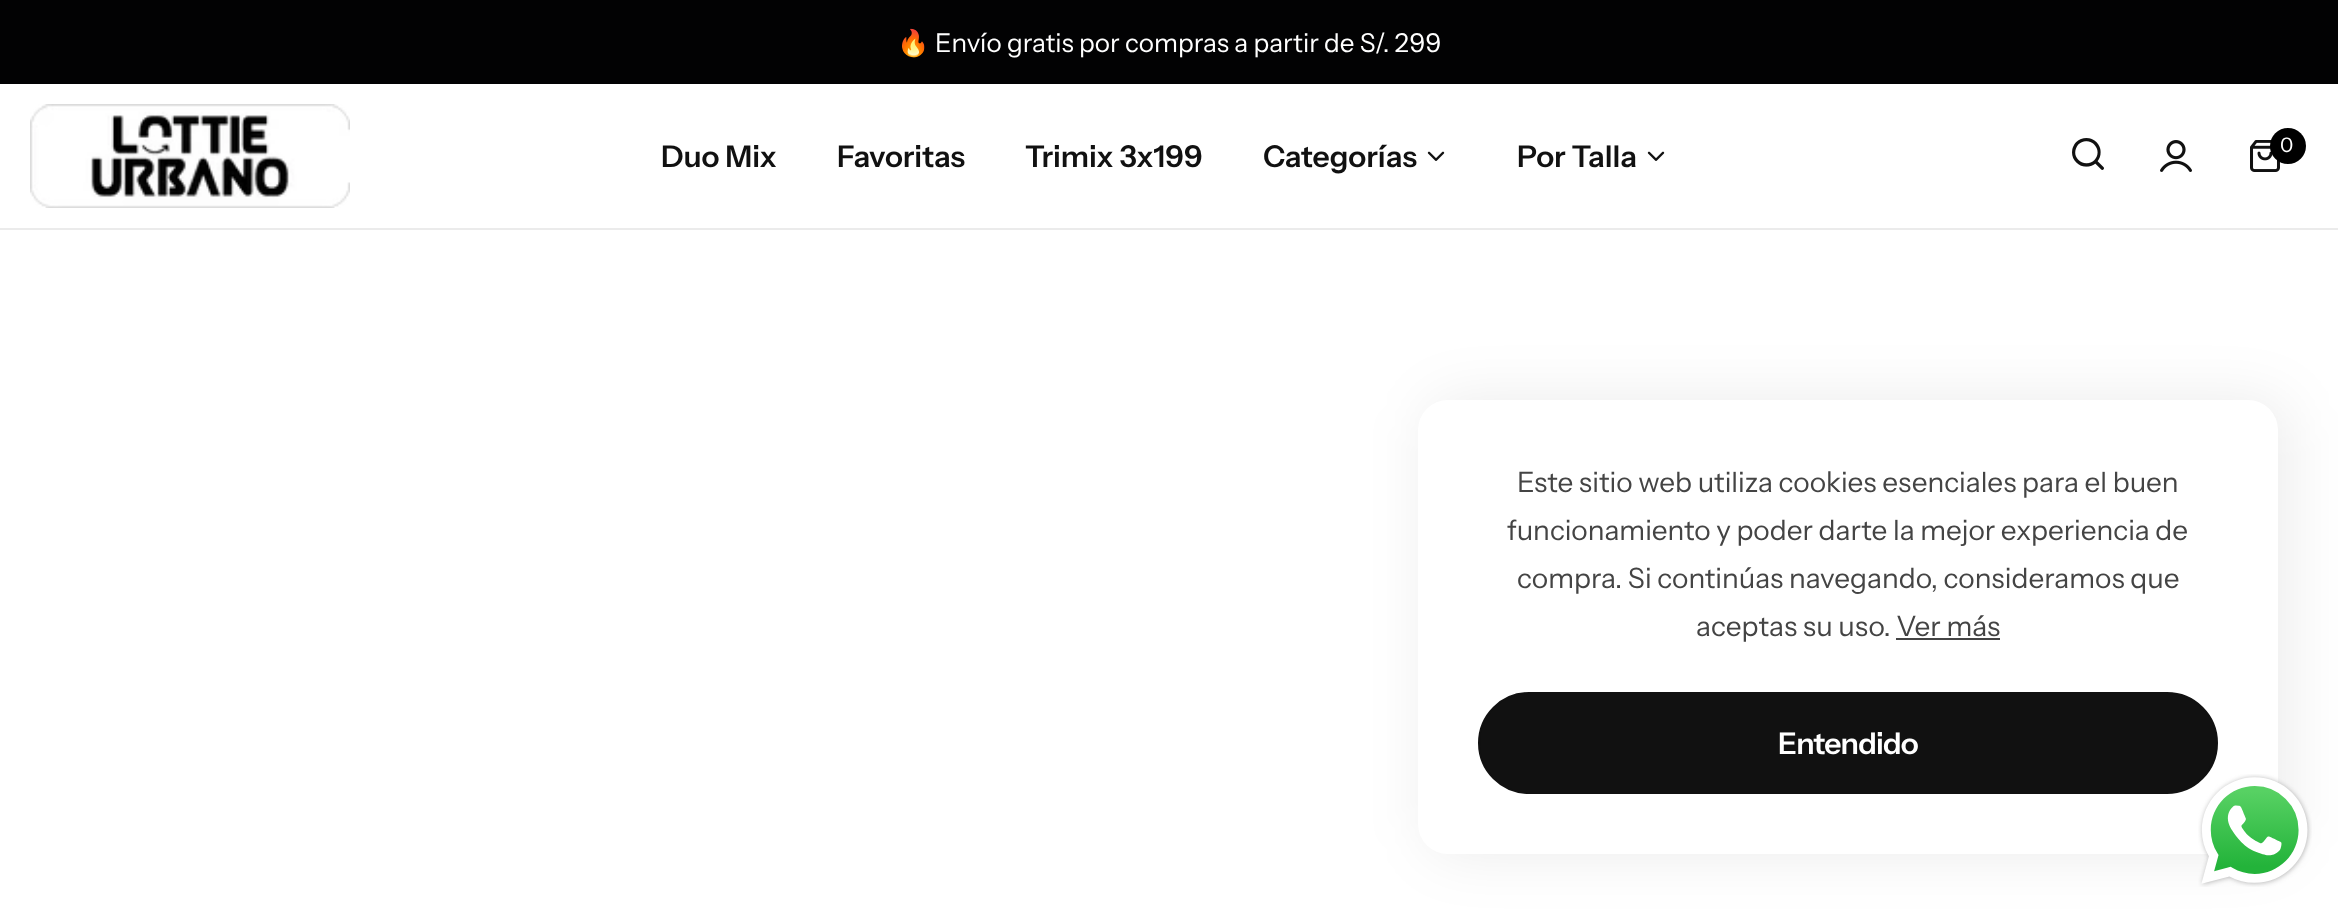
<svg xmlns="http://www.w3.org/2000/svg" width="2338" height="914">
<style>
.a{font:26px Noto Color Emoji;fill:#fff}
.b{font:26px Instrument Sans;fill:#fff}
.c{font:600 30px Instrument Sans;fill:#111}
.d{font:20px Instrument Sans;fill:#fff}
.e{font:28px Instrument Sans;fill:#444}
.f{font:600 30px Instrument Sans;letter-spacing:-0.75px;fill:#fff}
</style>
<rect width="100%" height="100%" fill="#fff"/>
<path fill="#020203" d="M0 0h2338v84H0z"/>
<path fill="#ebebeb" d="M0 228h2338v2H0z"/>
<image href="1.png" x="30" y="104" width="320" height="104"/>
<image href="2.png" x="1427" y="151" width="18" height="10"/>
<image href="2.png" x="1647" y="151" width="18" height="10"/>
<image href="3.png" x="2072" y="138" width="32" height="32"/>
<image href="4.png" x="2160" y="140" width="32" height="32"/>
<image href="5.png" x="2250" y="140" width="30" height="32"/>
<circle fill="#000" cx="2288" cy="146" r="18"/>
<rect fill="#00000014" filter="blur(30px)" x="1428" y="400" width="860" height="454" rx="30"/>
<rect fill="#fff" x="1418" y="400" width="860" height="454" rx="30"/>
<path fill="#444" d="M1896 638h104v2H1896z"/>
<rect fill="#111" stroke="#111" stroke-width="2" x="1479" y="693" width="738" height="100" rx="50"/>
<image href="6.png" x="2198" y="774" width="114" height="113"/>
<text class="a" x="897" y="52">🔥</text>
<text class="b" x="935" y="52">Envío gratis por compras a partir de S/. 299</text>
<text class="c" x="661" y="167">Duo Mix</text>
<text class="c" x="837" y="167">Favoritas</text>
<text class="c" x="1025" y="167">Trimix 3x199</text>
<text class="c" x="1263" y="167">Categorías</text>
<text class="c" x="1517" y="167">Por Talla</text>
<text class="d" x="2280" y="152">0</text>
<text class="e" x="1517" y="492">Este sitio web utiliza cookies esenciales para el buen</text>
<text class="e" x="1507" y="540">funcionamiento y poder darte la mejor experiencia de</text>
<text class="e" x="1517" y="588">compra. Si continúas navegando, consideramos que</text>
<text class="e" x="1696" y="636">aceptas su uso. Ver más</text>
<text class="f" x="1778" y="754">Entendido</text>
</svg>
